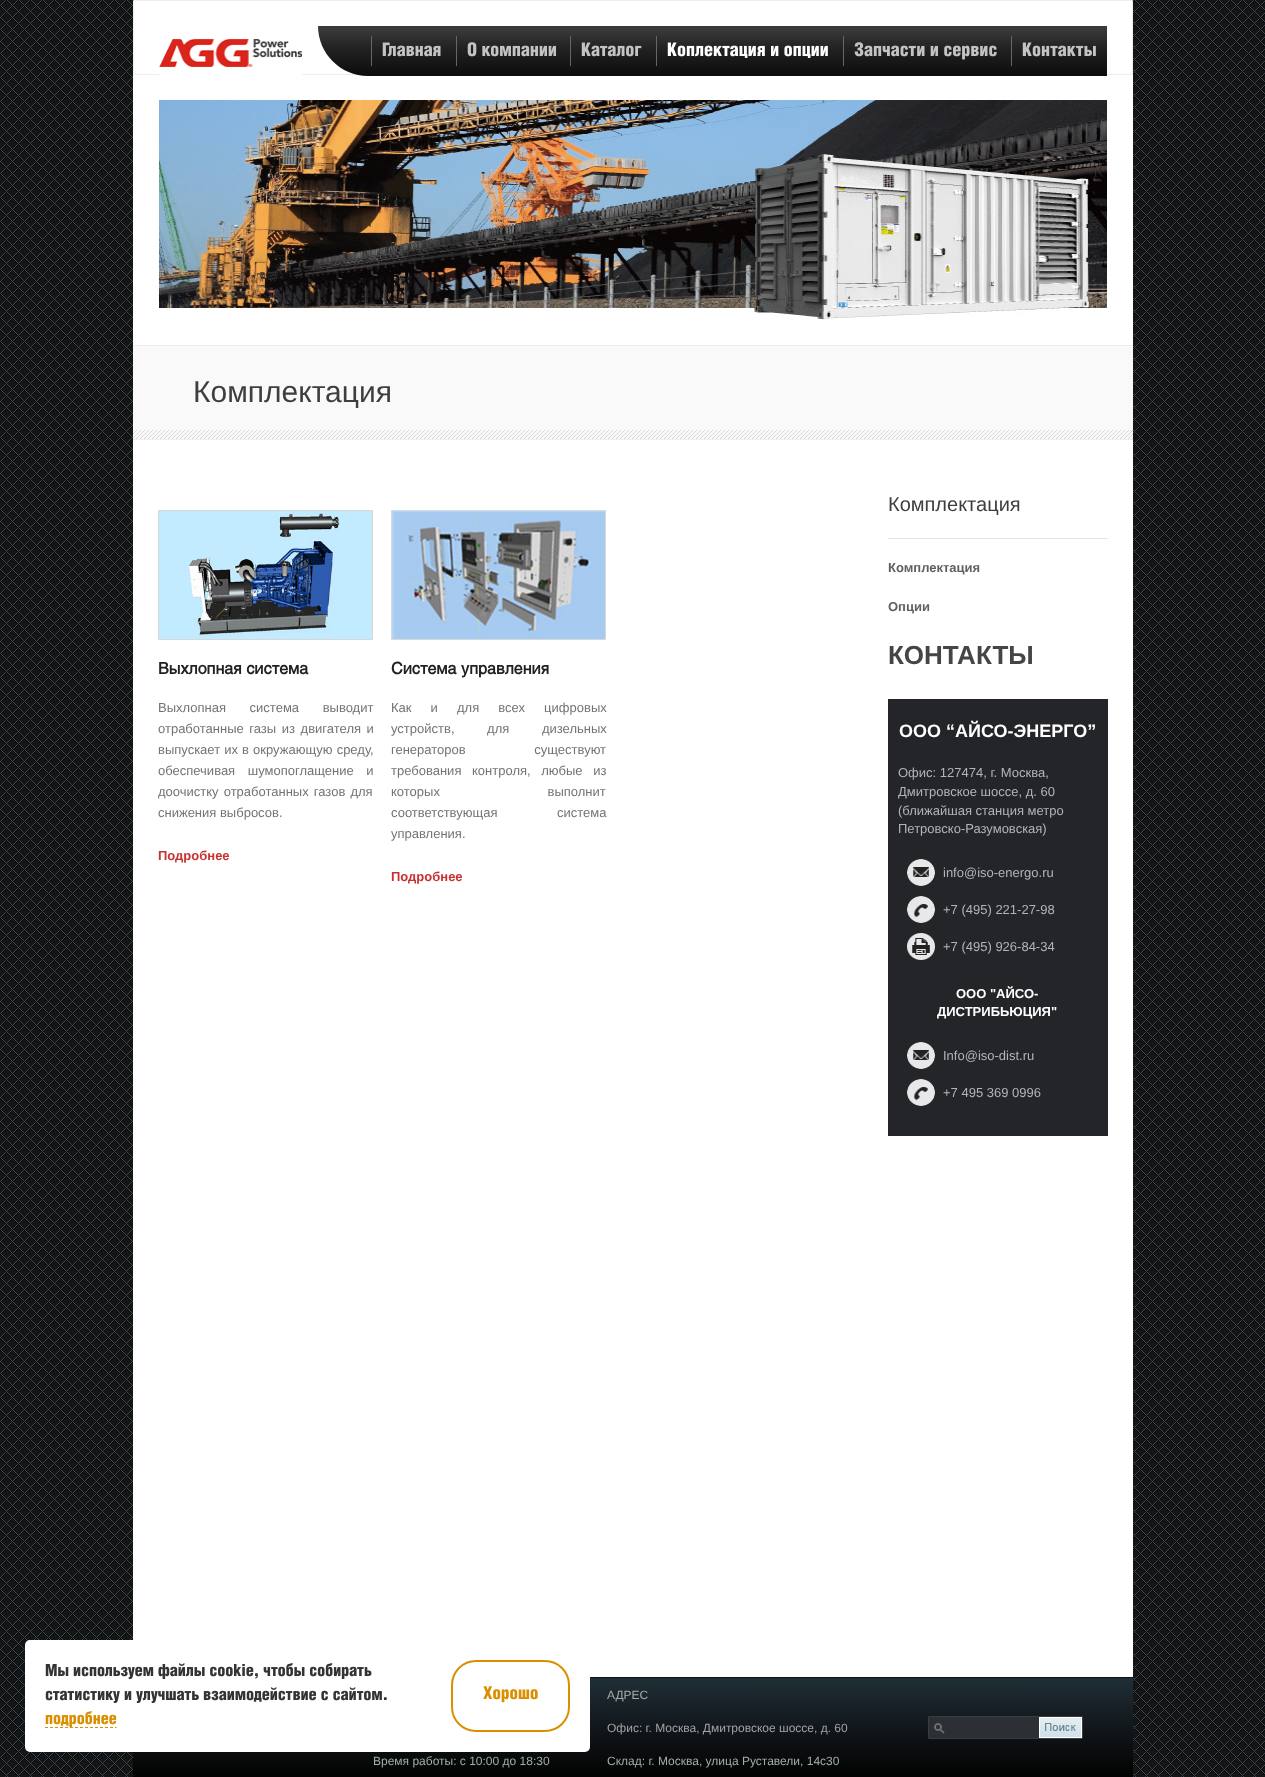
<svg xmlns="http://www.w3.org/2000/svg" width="1265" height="1777">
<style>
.a{font:30px Liberation Sans;fill:#3e3e3e}
.b{font:bold 16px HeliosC;fill:#222}
.c{font:13px Liberation Sans;fill:#737373}
.d{font:bold 13px Liberation Sans;fill:#c83233}
.e{font:20px Liberation Sans;fill:#3e3e3e}
.f{font:bold 13px Liberation Sans;fill:#606060}
.g{font:bold 26px Liberation Sans;fill:#454545}
.h{font:bold 18px Liberation Sans;fill:#fff}
.i{font:13px Liberation Sans;fill:#afb6b8}
.j{font:bold 13px Liberation Sans;fill:#fff}
.k{font:12px Liberation Sans;fill:#a3adac}
.l{font:12px Liberation Sans;fill:#a3a3a3}
</style>
<defs>
<linearGradient id="g1" gradientUnits="userSpaceOnUse" x1="739" y1="76" x2="739" y2="26"><stop offset="0" stop-color="#0c0c0c"/><stop offset="0.56" stop-color="#222"/><stop offset="0.95" stop-color="#3a3a3a"/></linearGradient>
<linearGradient id="g2" gradientUnits="userSpaceOnUse" x1="345" y1="76" x2="345" y2="26"><stop offset="0" stop-color="#0c0c0c"/><stop offset="0.56" stop-color="#222"/><stop offset="0.95" stop-color="#3a3a3a"/></linearGradient>
<linearGradient id="g3" gradientUnits="userSpaceOnUse" x1="633" y1="1777" x2="633" y2="1678"><stop offset="0.03" stop-color="#030303"/><stop offset="0.51" stop-color="#12171b"/><stop offset="1" stop-color="#202f36"/></linearGradient>
</defs>
<rect width="100%" height="100%" fill="#fff"/>
<image href="1.png" x="0" y="0" width="1265" height="1777"/>
<path fill="#fff" d="M133 1h1000v1676H133z"/>
<path fill="none" stroke="#eee" d="M133.5 0.5h999v74H133.5z"/>
<image href="2.png" x="159" y="39" width="143" height="36"/>
<path fill="url(#g1)" d="M371 26h736v50H371z"/>
<path fill="url(#g2)" d="M318 26h53v50h-3c-27.5 0-50-22.5-50-50z"/>
<path fill="#666" d="M371 36h1v30H371z"/>
<image href="3.png" x="382" y="42" width="59" height="15"/>
<path fill="#666" d="M456 36h1v30H456z"/>
<image href="4.png" x="467" y="42" width="90" height="15"/>
<path fill="#666" d="M570 36h1v30H570z"/>
<image href="5.png" x="581" y="42" width="61" height="15"/>
<path fill="#666" d="M656 36h1v30H656z"/>
<image href="6.png" x="667" y="42" width="161" height="16"/>
<path fill="#666" d="M843 36h1v30H843z"/>
<image href="7.png" x="854" y="42" width="143" height="18"/>
<path fill="#666" d="M1011 36h1v30H1011z"/>
<image href="8.png" x="1022" y="42" width="74" height="15"/>
<image href="9.png" x="159" y="100" width="948" height="220"/>
<path fill="#f9f9f9" d="M133 346h1000v93H133z"/>
<image href="10.png" x="133" y="430" width="1000" height="9"/>
<path fill="#eee" d="M133 345h1000v1H133z"/>
<path fill="#eee" d="M133 439h1000v1H133z"/>
<path fill="none" stroke="#d8d8d8" d="M158.5 510.5h214v129H158.5z"/>
<image href="11.png" x="159" y="511" width="213" height="128"/>
<path fill="none" stroke="#d8d8d8" d="M391.5 510.5h214v129H391.5z"/>
<image href="12.png" x="392" y="511" width="213" height="128"/>
<path fill="#e5e5e5" d="M888 538h220v1H888z"/>
<path fill="#242529" d="M888 699h220v437H888z"/>
<image href="13.png" x="907" y="859" width="28" height="27"/>
<image href="14.png" x="907" y="896" width="28" height="27"/>
<image href="15.png" x="907" y="933" width="28" height="27"/>
<image href="13.png" x="907" y="1042" width="28" height="27"/>
<image href="14.png" x="907" y="1079" width="28" height="27"/>
<path fill="url(#g3)" d="M133 1678h1000v99H133z"/>
<rect fill="#fff" x="25" y="1640" width="565" height="112" rx="5"/>
<image href="16.png" x="45" y="1663" width="327" height="16"/>
<image href="17.png" x="45" y="1687" width="342" height="16"/>
<image href="18.png" x="45" y="1711" width="72" height="16"/>
<path fill="none" stroke="#d98f00" stroke-dasharray="3 2" d="M45 1727.5h71.5"/>
<rect fill="none" stroke="#d98f00" stroke-width="2" x="452" y="1661" width="117" height="70" rx="24"/>
<image href="19.png" x="483" y="1686" width="55" height="17"/>
<path fill="#0f1316" d="M590 1677h543v1H590z"/>
<path fill="none" stroke="#393d40" d="M928.5 1716.5h154v22H928.5z"/>
<path fill="#2c2f34" d="M929 1717h110v21H929z"/>
<image href="20.png" x="934" y="1723" width="11" height="11"/>
<image href="21.png" x="1039" y="1717" width="43" height="21"/>
<text class="a" x="193" y="402">Комплектация</text>
<text class="b" x="158" y="674">Выхлопная система</text>
<text class="c" x="158" y="712" word-spacing="20">Выхлопная система выводит</text>
<text class="c" x="158" y="733" word-spacing="2">отработанные газы из двигателя и</text>
<text class="c" x="158" y="754" word-spacing="0.5">выпускает их в окружающую среду,</text>
<text class="c" x="158" y="775" word-spacing="9">обеспечивая шумопоглащение и</text>
<text class="c" x="158" y="796" word-spacing="1.5">доочистку отработанных газов для</text>
<text class="c" x="158" y="817">снижения выбросов.</text>
<text class="d" x="158" y="860">Подробнее</text>
<text class="b" x="391" y="674">Система управления</text>
<text class="c" x="391" y="712" word-spacing="15.5">Как и для всех цифровых</text>
<text class="c" x="391" y="733" word-spacing="29">устройств, для дизельных</text>
<text class="c" x="391" y="754" word-spacing="65">генераторов существуют</text>
<text class="c" x="391" y="775" word-spacing="7">требования контроля, любые из</text>
<text class="c" x="391" y="796" word-spacing="104">которых выполнит</text>
<text class="c" x="391" y="817" word-spacing="56">соответствующая система</text>
<text class="c" x="391" y="838">управления.</text>
<text class="d" x="391" y="881">Подробнее</text>
<text class="e" x="888" y="511">Комплектация</text>
<text class="f" x="888" y="572">Комплектация</text>
<text class="f" x="888" y="611">Опции</text>
<text class="g" x="888" y="664">КОНТАКТЫ</text>
<text class="h" x="899" y="737">ООО “АЙСО-ЭНЕРГО”</text>
<text class="i" x="898" y="777">Офис: 127474, г. Москва,</text>
<text class="i" x="898" y="796">Дмитровское шоссе, д. 60</text>
<text class="i" x="898" y="815">(ближайшая станция метро</text>
<text class="i" x="898" y="833">Петровско-Разумовская)</text>
<text class="i" x="943" y="877">info@iso-energo.ru</text>
<text class="i" x="943" y="914">+7 (495) 221-27-98</text>
<text class="i" x="943" y="951">+7 (495) 926-84-34</text>
<text class="j" x="956" y="998">ООО "АЙСО-</text>
<text class="j" x="937" y="1016">ДИСТРИБЬЮЦИЯ"</text>
<text class="i" x="943" y="1060">Info@iso-dist.ru</text>
<text class="i" x="943" y="1097">+7 495 369 0996</text>
<text class="k" x="607" y="1699">АДРЕС</text>
<text class="l" x="607" y="1732">Офис: г. Москва, Дмитровское шоссе, д. 60</text>
<text class="k" x="373" y="1765">Время работы: с 10:00 до 18:30</text>
<text class="k" x="607" y="1765">Склад: г. Москва, улица Руставели, 14с30</text>
</svg>
